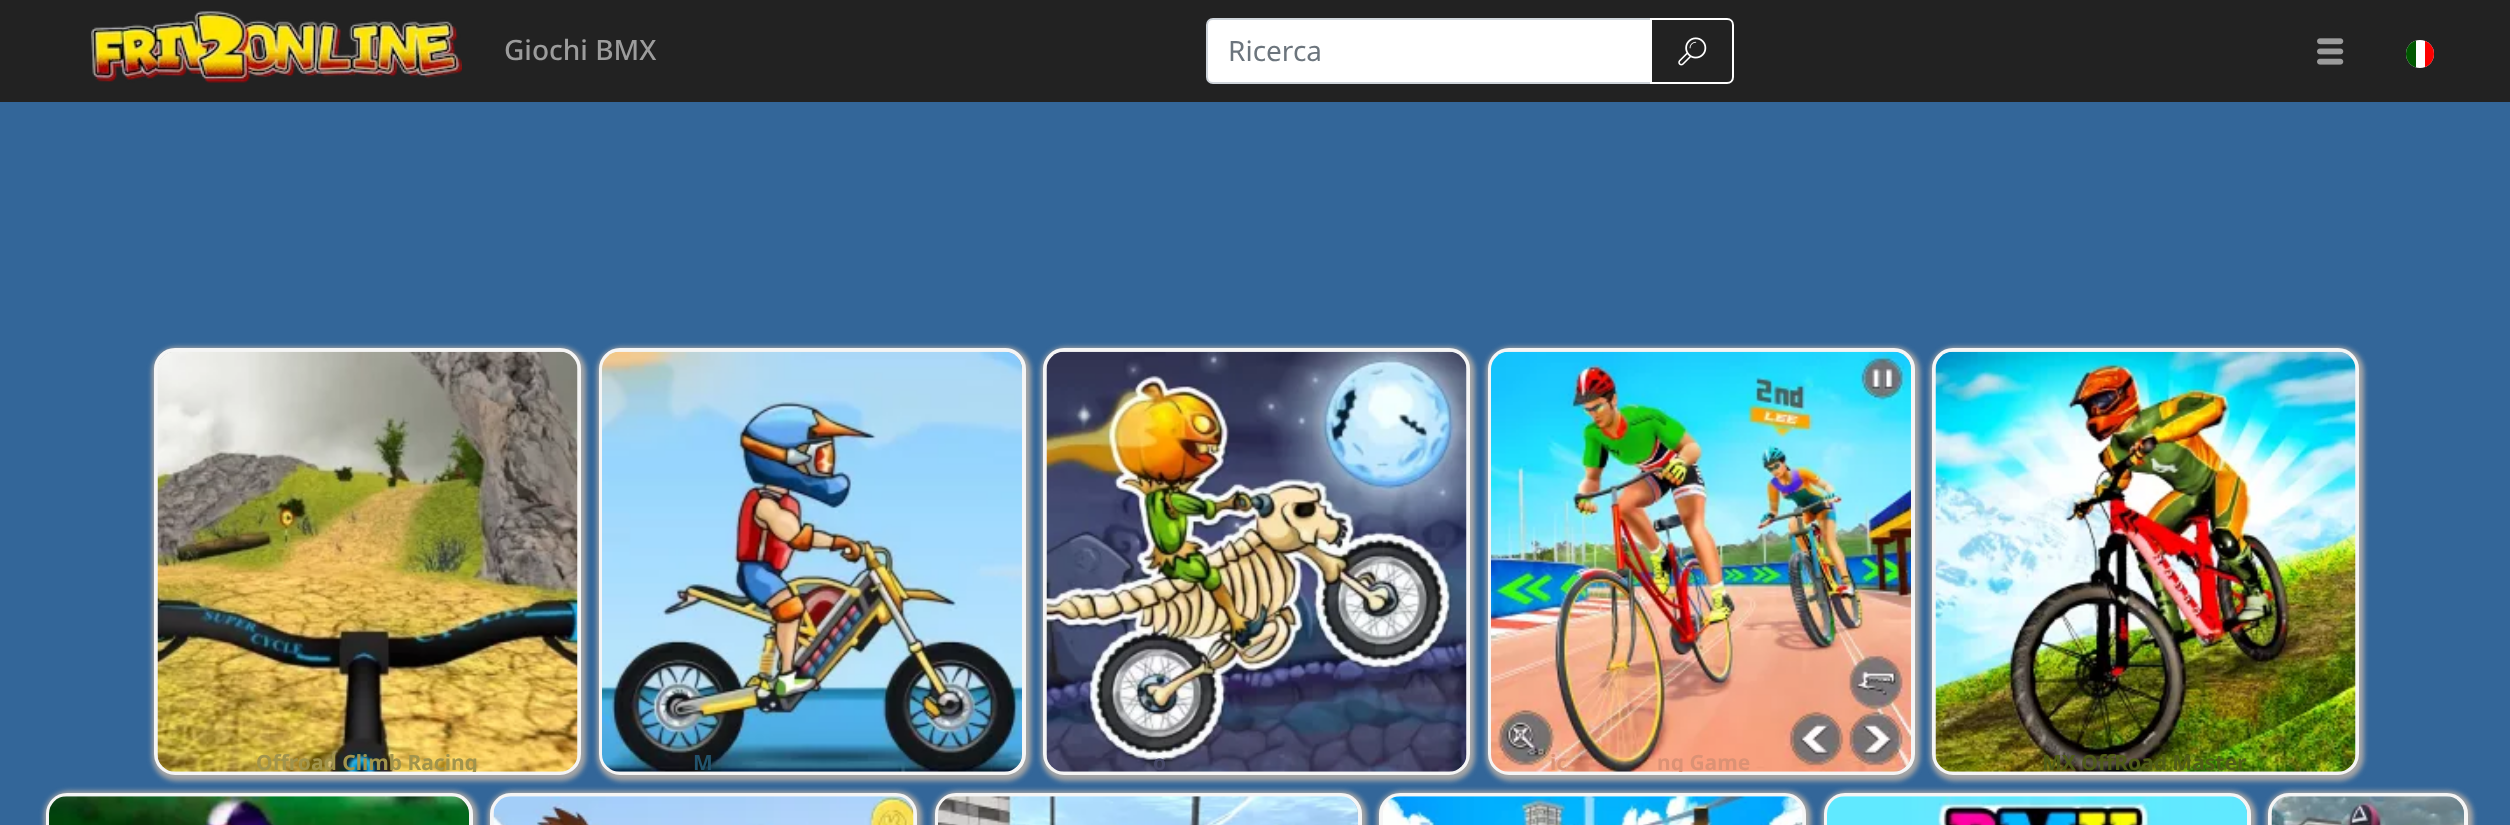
<svg xmlns="http://www.w3.org/2000/svg" width="2510" height="825">
<style>
.a{font:500 28px Noto Sans;fill:#9c9c9c}
.b{font:28px Noto Sans;fill:#6c757d}
.c{font:bold 21px Noto Sans;fill:#a1944c}
.d{font:bold 21px Noto Sans;fill:#22536c}
.e{font:bold 21px Noto Sans;fill:#474968}
.f{font:bold 21px Noto Sans;fill:#db9275}
.g{font:bold 21px Noto Sans;fill:#4f5c18}
</style>
<defs>
<clipPath id="clip1"><rect x="2406" y="40" width="28" height="28" rx="14"/></clipPath>
<clipPath id="clip2"><rect x="158" y="352" width="420" height="420" rx="18"/></clipPath>
<clipPath id="clip3"><rect x="1491" y="352" width="420" height="420" rx="18"/></clipPath>
</defs>
<rect width="100%" height="100%" fill="#369"/>
<path fill="#222" d="M0 0h2510v102H0z"/>
<image href="1.png" x="91" y="11" width="371" height="72"/>
<path fill="#fff" stroke="#ced4da" stroke-width="2" d="M1213 19h438v64h-438c-3.5 0-6-2.5-6-6v-52c0-3.5 2.5-6 6-6z"/>
<path fill="none" stroke="#fff" stroke-width="2" d="M1651 19h76c3.5 0 6 2.5 6 6v52c0 3.5-2.5 6-6 6h-76z"/>
<image href="2.png" x="1678" y="37" width="29" height="29"/>
<image href="3.png" x="2317" y="38" width="27" height="27"/>
<circle fill="#fff" cx="2420" cy="54" r="14"/>
<g clip-path="url(#clip1)">
<path fill="#005700" d="M2406 40h10v28H2406z"/>
<path fill="#fc0000" d="M2425 41h9v26H2425z"/>
</g>
<rect fill="#a5a5a5" filter="blur(2.5px)" x="152" y="347" width="434" height="434" rx="25"/>
<rect fill="none" stroke="#f5f5f5" stroke-width="4" x="156" y="350" width="423" height="423" rx="19"/>
<image href="4.png" x="157" y="351" width="421" height="421"/>
<rect fill="#a5a5a5" filter="blur(2.5px)" x="597" y="347" width="434" height="434" rx="25"/>
<rect fill="none" stroke="#f5f5f5" stroke-width="4" x="601" y="350" width="423" height="423" rx="19"/>
<image href="5.png" x="602" y="351" width="420" height="421"/>
<rect fill="#a5a5a5" filter="blur(2.5px)" x="1041" y="347" width="434" height="434" rx="25"/>
<rect fill="none" stroke="#f5f5f5" stroke-width="4" x="1045" y="350" width="423" height="423" rx="19"/>
<image href="6.png" x="1046" y="351" width="421" height="421"/>
<rect fill="#a5a5a5" filter="blur(2.5px)" x="1486" y="347" width="434" height="434" rx="25"/>
<rect fill="none" stroke="#f5f5f5" stroke-width="4" x="1490" y="350" width="423" height="423" rx="19"/>
<image href="7.png" x="1491" y="351" width="420" height="421"/>
<rect fill="#a5a5a5" filter="blur(2.5px)" x="1930" y="347" width="434" height="434" rx="25"/>
<rect fill="none" stroke="#f5f5f5" stroke-width="4" x="1934" y="350" width="423" height="423" rx="19"/>
<image href="8.png" x="1935" y="351" width="421" height="421"/>
<rect fill="#a5a5a5" filter="blur(2.5px)" x="44" y="791" width="434" height="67" rx="25"/>
<rect fill="none" stroke="#f5f5f5" stroke-width="4" x="48" y="795" width="423" height="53" rx="19"/>
<image href="9.png" x="49" y="796" width="420" height="29"/>
<rect fill="#a5a5a5" filter="blur(2.5px)" x="488" y="791" width="434" height="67" rx="25"/>
<rect fill="none" stroke="#f5f5f5" stroke-width="4" x="492" y="795" width="423" height="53" rx="19"/>
<image href="10.png" x="493" y="796" width="421" height="29"/>
<rect fill="#a5a5a5" filter="blur(2.5px)" x="933" y="791" width="434" height="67" rx="25"/>
<rect fill="none" stroke="#f5f5f5" stroke-width="4" x="937" y="795" width="423" height="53" rx="19"/>
<image href="11.png" x="938" y="796" width="420" height="29"/>
<rect fill="#a5a5a5" filter="blur(2.5px)" x="1377" y="791" width="434" height="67" rx="25"/>
<rect fill="none" stroke="#f5f5f5" stroke-width="4" x="1381" y="795" width="423" height="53" rx="19"/>
<image href="12.png" x="1383" y="796" width="420" height="29"/>
<rect fill="#a5a5a5" filter="blur(2.5px)" x="1822" y="791" width="434" height="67" rx="25"/>
<rect fill="none" stroke="#f5f5f5" stroke-width="4" x="1826" y="795" width="423" height="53" rx="19"/>
<image href="13.png" x="1827" y="796" width="420" height="29"/>
<rect fill="#a5a5a5" filter="blur(2.5px)" x="2266" y="791" width="207" height="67" rx="25"/>
<rect fill="none" stroke="#f5f5f5" stroke-width="4" x="2270" y="795" width="196" height="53" rx="19"/>
<image href="14.png" x="2271" y="796" width="193" height="29"/>
<text class="a" x="504" y="60">Giochi BMX</text>
<text class="b" x="1228" y="61">Ricerca</text>
<g clip-path="url(#clip2)">
<text class="c" x="256" y="770">Offroad Climb Racing</text>
</g>
<text class="d" x="693" y="770">M</text>
<text class="e" x="1153" y="770">o</text>
<text class="f" x="1550" y="770">ic</text>
<g clip-path="url(#clip3)">
<text class="f" x="1657" y="770">ng Game</text>
</g>
<text class="g" x="2042" y="770">MX OffRoad Master</text>
</svg>
